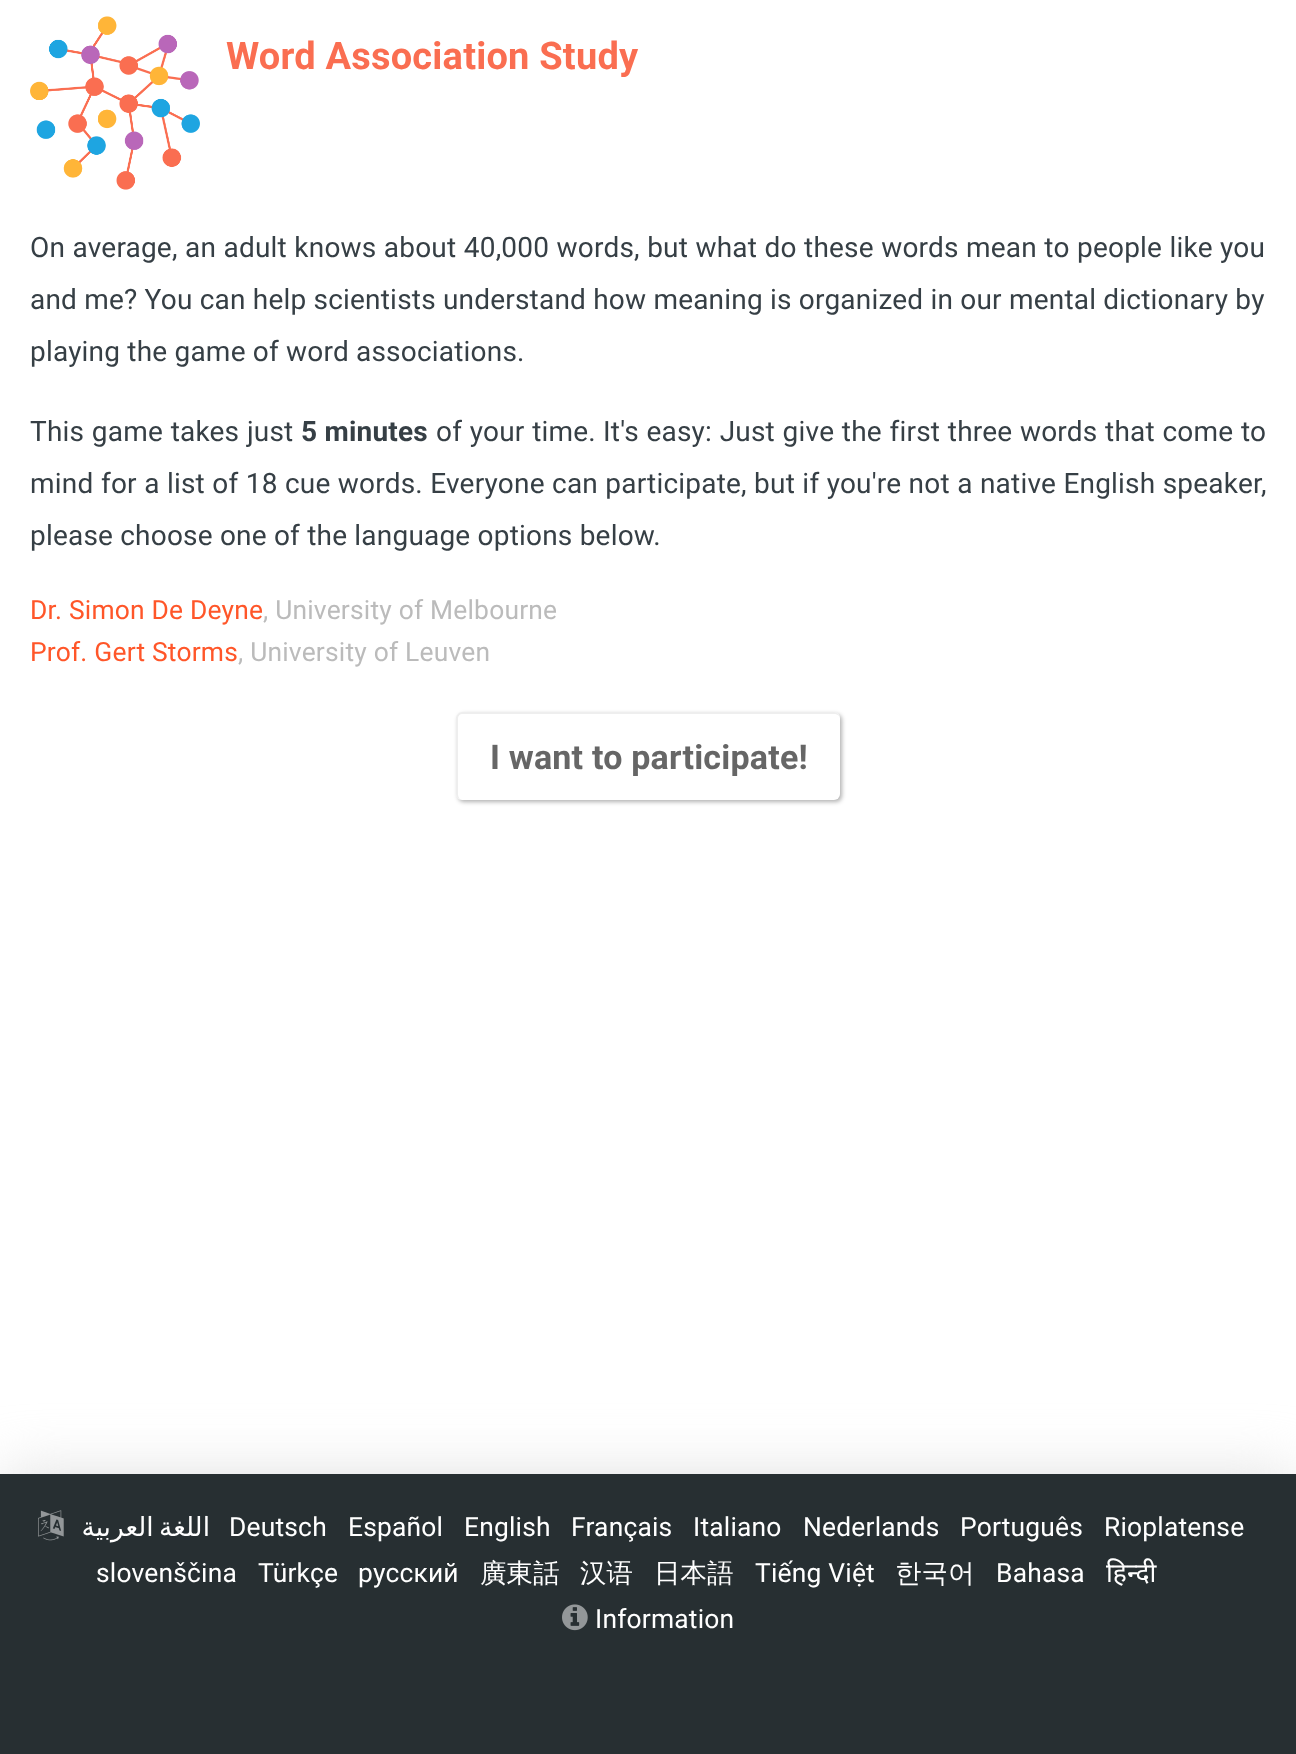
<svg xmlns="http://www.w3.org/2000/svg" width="1296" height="1754">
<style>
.a{font:bold 38px Roboto;letter-spacing:0.2px;fill:#fa6e51}
.b{font:28px Roboto;letter-spacing:0.2px;fill:#363f45}
.c{font:bold 28px Roboto;letter-spacing:0.2px;fill:#363f45}
.d{font:26.4px Roboto;letter-spacing:0.2px;fill:#ff5629}
.e{font:26.4px Roboto;letter-spacing:0.2px;fill:#bbb}
.f{font:bold 34px Roboto;letter-spacing:0.2px;fill:#666}
.g{font:26.4px DejaVu Sans;letter-spacing:0.2px;direction:rtl;fill:#fff}
.h{font:26.4px Roboto;letter-spacing:0.2px;fill:#fff}
.i{font:500 26.4px WenQuanYi Zen Hei;letter-spacing:0.2px;fill:#fff}
.j{font:26.4px Noto Sans;letter-spacing:0.2px;fill:#fff}
</style>
<rect width="100%" height="100%" fill="#fff"/>
<image href="1.png" x="30" y="16" width="170" height="174"/>
<rect fill="#0000004d" filter="blur(2px)" x="458" y="714" width="384" height="88" rx="6"/>
<rect fill="#fff" x="456" y="712" width="384" height="88" rx="6"/>
<path fill="#eee" fill-rule="evenodd" d="M462 712h372c3 0 6 3 6 6v76c0 3-3 6-6 6h-372c-3 0-6-3-6-6v-76c0-3 3-6 6-6zm0 2h372c3 0 6 2 6 4v76c0 3-3 6-6 6h-372c-2 0-4-3-4-6v-76c0-2 2-4 4-4z"/>
<path fill="#dcdcdcd9" filter="blur(30px)" d="M0 1474h1296v280H0z"/>
<path fill="#272f32" d="M0 1474h1296v280H0z"/>
<image href="2.png" x="38" y="1510" width="26" height="31"/>
<image href="3.png" x="562" y="1604" width="26" height="27"/>
<text class="a" x="226" y="69">Word Association Study</text>
<text class="b" x="30" y="257" word-spacing="0.25">On average, an adult knows about 40,000 words, but what do these words mean to people like you</text>
<text class="b" x="30" y="309">and me? You can help scientists understand how meaning is organized in our mental dictionary by</text>
<text class="b" x="30" y="361">playing the game of word associations.</text>
<text class="b" x="30" y="441" word-spacing="0.5">This game takes just</text>
<text class="c" x="301" y="441">5 minutes</text>
<text class="b" x="436" y="441" word-spacing="0.5">of your time.</text>
<text class="b" x="603" y="441" word-spacing="0.5">It's easy: Just give the first three words that come to</text>
<text class="b" x="30" y="493">mind</text>
<text class="b" x="101" y="493" word-spacing="0.2">for a list of 18 cue words. Everyone can participate, but if you're not a native English speaker,</text>
<text class="b" x="30" y="545">please choose one of the language options below.</text>
<text class="d" x="30" y="619">Dr. Simon De Deyne</text>
<text class="e" x="263" y="619">, University of Melbourne</text>
<text class="d" x="30" y="661">Prof. Gert Storms</text>
<text class="e" x="238" y="661">, University of Leuven</text>
<text class="f" x="490" y="769">I want to participate!</text>
<text class="g" x="210" y="1536" word-spacing="-3">اللغة العربية</text>
<text class="h" x="229" y="1536">Deutsch</text>
<text class="h" x="348" y="1536">Español</text>
<text class="h" x="464" y="1536">English</text>
<text class="h" x="571" y="1536">Français</text>
<text class="h" x="693" y="1536">Italiano</text>
<text class="h" x="803" y="1536">Nederlands</text>
<text class="h" x="960" y="1536">Português</text>
<text class="h" x="1104" y="1536">Rioplatense</text>
<text class="h" x="96" y="1582">slovenščina</text>
<text class="h" x="258" y="1582">Türkçe</text>
<text class="h" x="358" y="1582">русский</text>
<text class="i" x="480" y="1582">廣東話</text>
<text class="i" x="580" y="1582">汉语</text>
<text class="i" x="654" y="1582">日本語</text>
<text class="h" x="755" y="1582">Tiếng Việt</text>
<text class="i" x="895" y="1582">한국어</text>
<text class="h" x="996" y="1582">Bahasa</text>
<text class="j" x="1106" y="1582">हिन्दी</text>
<text class="h" x="595" y="1628">Information</text>
</svg>
